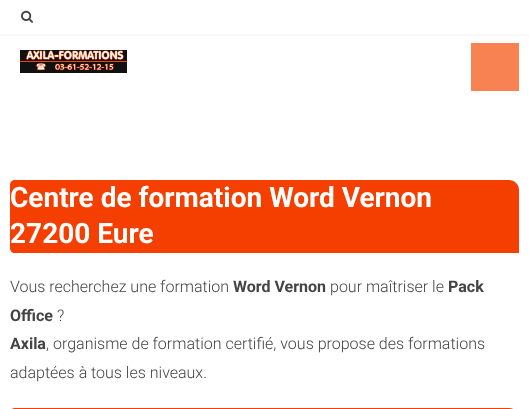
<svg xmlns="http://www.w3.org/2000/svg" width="529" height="409">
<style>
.a{font:bold 28px Roboto;fill:#fff}
.b{font:300 16px Roboto;fill:#444}
.c{font:bold 16px Roboto;fill:#444}
</style>
<rect width="100%" height="100%" fill="#fff"/>
<image href="1.png" x="21" y="10" width="12" height="13"/>
<path fill="#f8f8f8" d="M0 34h529v2H0z"/>
<image href="2.png" x="20" y="50" width="107" height="23"/>
<path fill="#f98253" d="M471 43h48v48H471z"/>
<path fill="#f43f01" d="M15 180h494c5.5 0 10 4.5 10 10v63h-504c-3 0-5-2-5-5v-63c0-3 2-5 5-5z"/>
<path fill="#f43f01" d="M15 408h494c5.5 0 10 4.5 10 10v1h-504c-3 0-5-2-5-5v-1c0-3 2-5 5-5z"/>
<text class="a" x="10" y="207">Centre de formation Word Vernon</text>
<text class="a" x="10" y="243">27200 Eure</text>
<text class="b" x="10" y="292">Vous recherchez une formation</text>
<text class="c" x="233" y="292">Word Vernon</text>
<text class="b" x="330" y="292">pour maîtriser le</text>
<text class="c" x="448" y="292">Pack</text>
<text class="c" x="10" y="321">Office</text>
<text class="b" x="57" y="321">?</text>
<text class="c" x="10" y="349">Axila</text>
<text class="b" x="46" y="349">, organisme de formation certifié, vous propose des formations</text>
<text class="b" x="10" y="378">adaptées à tous les niveaux.</text>
</svg>
